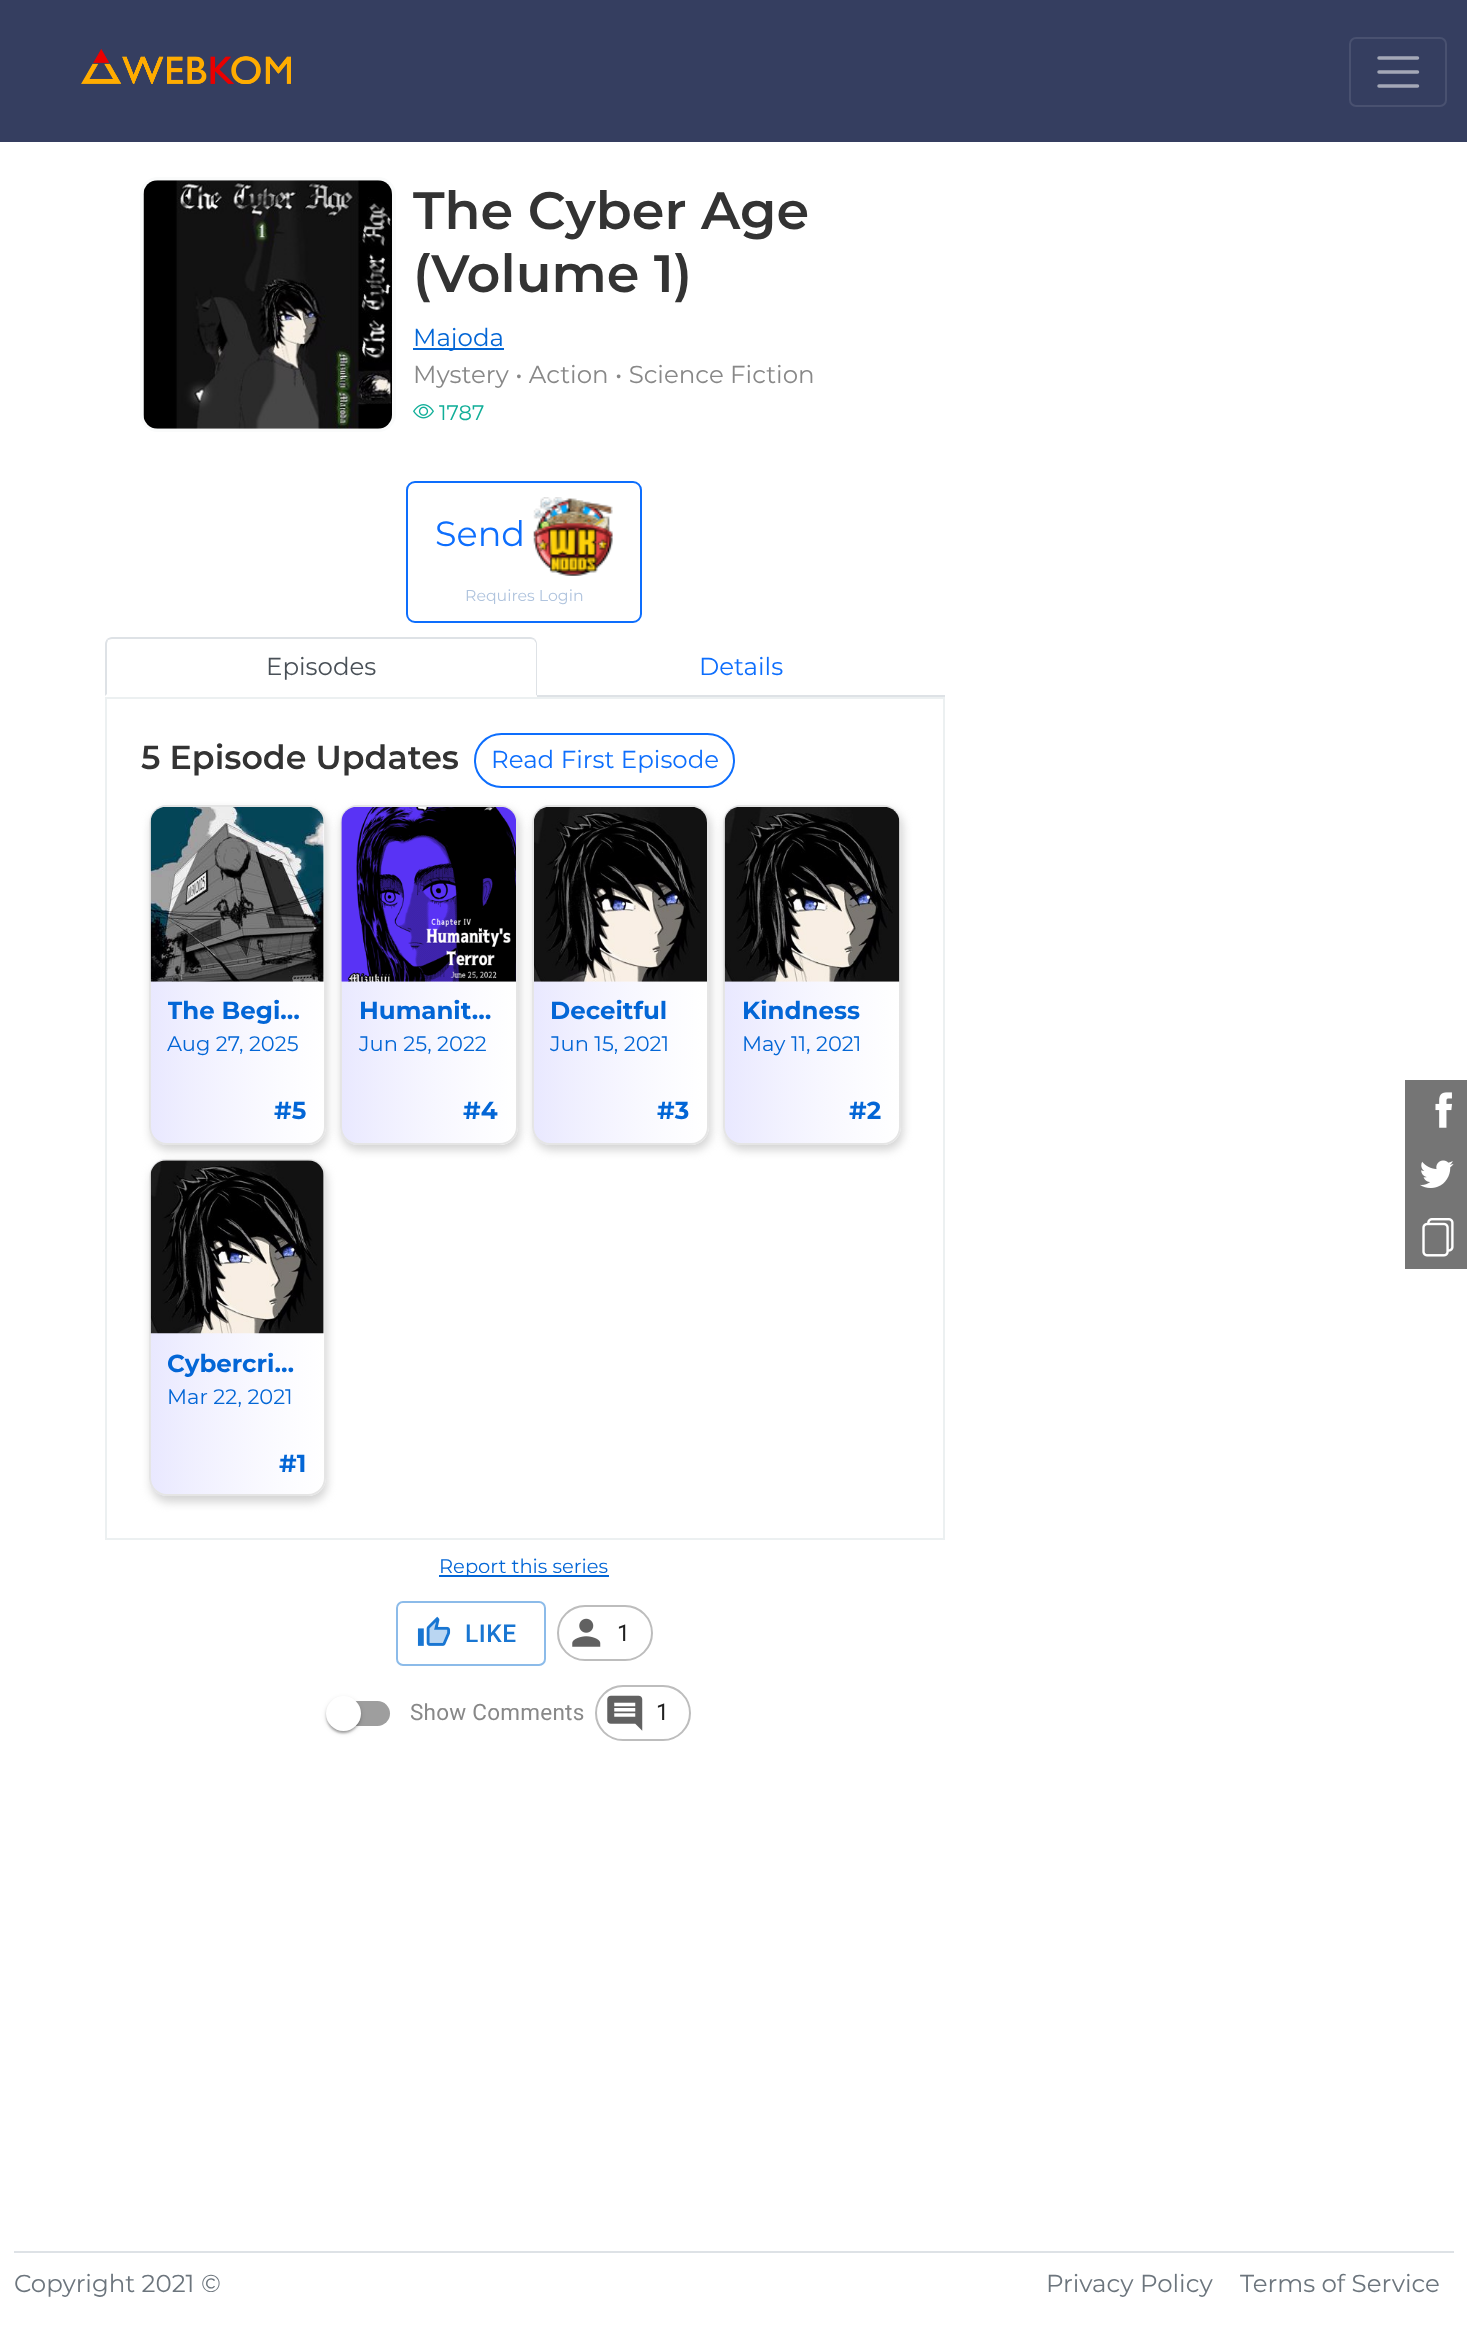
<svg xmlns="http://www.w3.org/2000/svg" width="1467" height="2348">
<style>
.a{font:600 52.5px Montserrat;fill:#333}
.b{font:24.5px Montserrat;fill:#0366d6}
.c{font:24.5px Montserrat;fill:#888}
.d{font:21px Montserrat;fill:#10ae98}
.e{font:35px Montserrat;fill:#0d6efd}
.f{font:15.75px Montserrat;fill:#b0c4de}
.g{font:24.5px Montserrat;fill:#495057}
.h{font:24.5px Montserrat;fill:#0d6efd}
.i{font:600 33.25px Montserrat;fill:#333}
.j{font:bold 24.5px Montserrat;fill:#0366d6}
.k{font:21px Montserrat;fill:#0366d6}
.l{font:19.5px Montserrat;fill:#0366d6}
.m{font:500 24.5px Roboto;letter-spacing:0.5px;fill:#1976d2}
.n{font:23px Roboto;fill:#212121}
.o{font:22.5px Roboto;letter-spacing:0.25px;fill:#888}
.p{font:23px Roboto;letter-spacing:0.25px;fill:#212121}
.q{font:24.5px Montserrat;fill:#6c757d}
</style>
<defs>
<clipPath id="clip1"><path d="M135 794h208v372h-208zm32 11h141c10 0 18 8 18 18v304c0 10-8 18-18 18h-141c-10 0-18-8-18-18v-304c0-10 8-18 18-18z" clip-rule="evenodd"/></clipPath>
<clipPath id="clip2"><rect x="149" y="805" width="177" height="340" rx="18"/></clipPath>
<linearGradient id="g1" gradientUnits="userSpaceOnUse" x1="151" y1="975" x2="324" y2="975"><stop offset="0.01" stop-color="#241efb" stop-opacity="0.1"/><stop offset="1" stop-color="#fff" stop-opacity="0.06"/></linearGradient>
<clipPath id="clip3"><path d="M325 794h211v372h-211zm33 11h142c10 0 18 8 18 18v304c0 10-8 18-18 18h-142c-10 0-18-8-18-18v-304c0-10 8-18 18-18z" clip-rule="evenodd"/></clipPath>
<clipPath id="clip4"><rect x="340" y="805" width="178" height="340" rx="18"/></clipPath>
<linearGradient id="g2" gradientUnits="userSpaceOnUse" x1="341" y1="975" x2="516" y2="975"><stop offset="0.01" stop-color="#241efb" stop-opacity="0.1"/><stop offset="1" stop-color="#fff" stop-opacity="0.06"/></linearGradient>
<clipPath id="clip5"><path d="M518 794h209v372h-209zm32 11h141c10 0 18 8 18 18v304c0 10-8 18-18 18h-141c-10 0-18-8-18-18v-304c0-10 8-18 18-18z" clip-rule="evenodd"/></clipPath>
<clipPath id="clip6"><rect x="532" y="805" width="177" height="340" rx="18"/></clipPath>
<linearGradient id="g3" gradientUnits="userSpaceOnUse" x1="534" y1="975" x2="707" y2="975"><stop offset="0.01" stop-color="#241efb" stop-opacity="0.1"/><stop offset="1" stop-color="#fff" stop-opacity="0.06"/></linearGradient>
<clipPath id="clip7"><path d="M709 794h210v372h-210zm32 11h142c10 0 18 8 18 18v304c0 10-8 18-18 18h-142c-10 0-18-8-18-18v-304c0-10 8-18 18-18z" clip-rule="evenodd"/></clipPath>
<clipPath id="clip8"><rect x="723" y="805" width="178" height="340" rx="18"/></clipPath>
<linearGradient id="g4" gradientUnits="userSpaceOnUse" x1="725" y1="975" x2="900" y2="975"><stop offset="0.01" stop-color="#241efb" stop-opacity="0.1"/><stop offset="1" stop-color="#fff" stop-opacity="0.06"/></linearGradient>
<clipPath id="clip9"><path d="M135 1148h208v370h-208zm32 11h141c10 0 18 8 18 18v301c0 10-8 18-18 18h-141c-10 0-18-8-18-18v-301c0-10 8-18 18-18z" clip-rule="evenodd"/></clipPath>
<clipPath id="clip10"><rect x="149" y="1159" width="177" height="337" rx="18"/></clipPath>
<linearGradient id="g5" gradientUnits="userSpaceOnUse" x1="151" y1="1327" x2="324" y2="1327"><stop offset="0.01" stop-color="#241efb" stop-opacity="0.1"/><stop offset="1" stop-color="#fff" stop-opacity="0.06"/></linearGradient>
<clipPath id="clip11"><path d="M168 999h138v27H168z"/></clipPath>
</defs>
<rect width="100%" height="100%" fill="#fff"/>
<path fill="#353e60" d="M0 0h1467v142H0z"/>
<image href="1.png" x="81" y="49" width="210" height="35"/>
<rect fill="none" stroke="#495170" stroke-width="2" x="1350" y="38" width="96" height="68" rx="6"/>
<path fill="none" stroke="#a4a8b7" stroke-width="3.5" stroke-linecap="round" d="M1379 58h38.5m-38.5 14h38.5m-38.5 14h38.5"/>
<rect fill="none" stroke="#fafbfb" stroke-width="4" x="142" y="179" width="252" height="251" rx="16"/>
<image href="2.png" x="143" y="180" width="249" height="249"/>
<path fill="#0366d6" d="M413 348h91v2H413z"/>
<image href="3.png" x="413" y="404" width="21" height="15"/>
<rect fill="none" stroke="#0d6efd" stroke-width="2" x="407" y="482" width="234" height="140" rx="8"/>
<image href="4.png" x="533" y="497" width="80" height="79"/>
<path fill="#dee2e6" d="M537 695h408v2H537z"/>
<path fill="#dee2e6" d="M112 637c-2 0-4 1-5 2l1 1c1 0 2-1 4-1h418c1 0 3 0 4 1l1-1c-1-1-3-2-5-2z"/>
<path fill="#dee2e6" d="M535 639c1 1 2 3 2 5v52l-1-1v-52l-2-3z"/>
<path fill="#fff" d="M537 696h-431l1-2v1h429z"/>
<path fill="#dee2e6" d="M105 644v52l2-2v-50c0-2 1-3 1-4l-1-1c-1 1-2 3-2 5z"/>
<path fill="none" stroke="#ecf0f1" stroke-width="2" d="M106 698h838v841H106z"/>
<rect fill="none" stroke="#0d6efd" stroke-width="2" x="475" y="734" width="259" height="53" rx="26.5"/>
<g clip-path="url(#clip1)">
<rect fill="#d3d3d3" filter="blur(5px)" x="151" y="810" width="176" height="340" rx="18"/>
</g>
<g clip-path="url(#clip2)">
<path fill="url(#g1)" d="M151 805h173v340H151z"/>
</g>
<rect fill="none" stroke="#e5e5e5" stroke-width="2" x="150" y="806" width="175" height="338" rx="17"/>
<image href="5.png" x="150" y="807" width="174" height="175"/>
<g clip-path="url(#clip3)">
<rect fill="#d3d3d3" filter="blur(5px)" x="341" y="810" width="179" height="340" rx="18"/>
</g>
<g clip-path="url(#clip4)">
<path fill="url(#g2)" d="M341 805h175v340H341z"/>
</g>
<rect fill="none" stroke="#e5e5e5" stroke-width="2" x="341" y="806" width="176" height="338" rx="17"/>
<image href="6.png" x="341" y="807" width="175" height="175"/>
<g clip-path="url(#clip5)">
<rect fill="#d3d3d3" filter="blur(5px)" x="534" y="810" width="177" height="340" rx="18"/>
</g>
<g clip-path="url(#clip6)">
<path fill="url(#g3)" d="M534 805h173v340H534z"/>
</g>
<rect fill="none" stroke="#e5e5e5" stroke-width="2" x="533" y="806" width="175" height="338" rx="17"/>
<image href="7.png" x="534" y="807" width="173" height="175"/>
<g clip-path="url(#clip7)">
<rect fill="#d3d3d3" filter="blur(5px)" x="725" y="810" width="178" height="340" rx="18"/>
</g>
<g clip-path="url(#clip8)">
<path fill="url(#g4)" d="M725 805h175v340H725z"/>
</g>
<rect fill="none" stroke="#e5e5e5" stroke-width="2" x="724" y="806" width="176" height="338" rx="17"/>
<image href="8.png" x="724" y="807" width="176" height="175"/>
<g clip-path="url(#clip9)">
<rect fill="#d3d3d3" filter="blur(5px)" x="151" y="1164" width="176" height="338" rx="18"/>
</g>
<g clip-path="url(#clip10)">
<path fill="url(#g5)" d="M151 1159h173v337H151z"/>
</g>
<rect fill="none" stroke="#e5e5e5" stroke-width="2" x="150" y="1160" width="175" height="335" rx="17"/>
<image href="9.png" x="150" y="1160" width="174" height="174"/>
<path fill="#757575" d="M1405 1080h62v189H1405z"/>
<image href="10.png" x="1435" y="1092" width="17" height="36"/>
<image href="11.png" x="1420" y="1160" width="34" height="28"/>
<image href="12.png" x="1422" y="1218" width="32" height="39"/>
<path fill="#0366d6" d="M439 1575h170v2H439z"/>
<rect fill="none" stroke="#8cbbe9" stroke-width="2" x="397" y="1602" width="148" height="63" rx="6"/>
<image href="13.png" x="417" y="1616" width="34" height="30"/>
<rect fill="none" stroke="#bdbdbd" stroke-width="2" x="558" y="1606" width="94" height="54" rx="27"/>
<image href="14.png" x="572" y="1618" width="29" height="29"/>
<rect fill="#9e9e9e" x="331" y="1701" width="59" height="25" rx="12.5"/>
<rect fill="#0000001f" filter="blur(2.5px)" x="326" y="1698" width="35" height="35" rx="17.5"/>
<rect fill="#00000024" filter="blur(1px)" x="326" y="1698" width="35" height="35" rx="17.5"/>
<rect fill="#00000033" filter="blur(1px)" x="327" y="1701" width="32" height="32" rx="16"/>
<circle fill="#fff" cx="343.5" cy="1713.5" r="17.5"/>
<rect fill="none" stroke="#bdbdbd" stroke-width="2" x="596" y="1686" width="94" height="54" rx="27"/>
<image href="15.png" x="607" y="1695" width="36" height="36"/>
<path fill="#dee2e6" d="M14 2251h1440v2H14z"/>
<text class="a" x="413" y="229">The Cyber Age</text>
<text class="a" x="413" y="292">(Volume 1)</text>
<text class="b" x="413" y="346">Majoda</text>
<text class="c" x="413" y="383">Mystery • Action • Science Fiction</text>
<text class="d" x="439" y="420">1787</text>
<text class="e" x="435" y="546">Send</text>
<text class="f" x="465" y="601">Requires Login</text>
<text class="g" x="266" y="675">Episodes</text>
<text class="h" x="699" y="675">Details</text>
<text class="i" x="141" y="769">5 Episode Updates</text>
<text class="h" x="491" y="768">Read First Episode</text>
<g clip-path="url(#clip11)">
<text class="j" x="167" y="1019">The Begi…</text>
</g>
<text class="k" x="167" y="1051">Aug 27, 2025</text>
<text class="j" x="274" y="1119">#5</text>
<text class="j" x="359" y="1019">Humanit…</text>
<text class="k" x="359" y="1051">Jun 25, 2022</text>
<text class="j" x="463" y="1119">#4</text>
<text class="j" x="550" y="1019">Deceitful</text>
<text class="k" x="550" y="1051">Jun 15, 2021</text>
<text class="j" x="657" y="1119">#3</text>
<text class="j" x="742" y="1019">Kindness</text>
<text class="k" x="742" y="1051">May 11, 2021</text>
<text class="j" x="849" y="1119">#2</text>
<text class="j" x="167" y="1372">Cybercri…</text>
<text class="k" x="167" y="1404">Mar 22, 2021</text>
<text class="j" x="279" y="1472">#1</text>
<text class="l" x="439" y="1573">Report this series</text>
<text class="m" x="465" y="1642">LIKE</text>
<text class="n" x="617" y="1641">1</text>
<text class="o" x="410" y="1720">Show Comments</text>
<text class="p" x="656" y="1720">1</text>
<text class="q" x="14" y="2292">Copyright 2021 ©</text>
<text class="q" x="1046" y="2292">Privacy Policy</text>
<text class="q" x="1240" y="2292">Terms of Service</text>
</svg>
